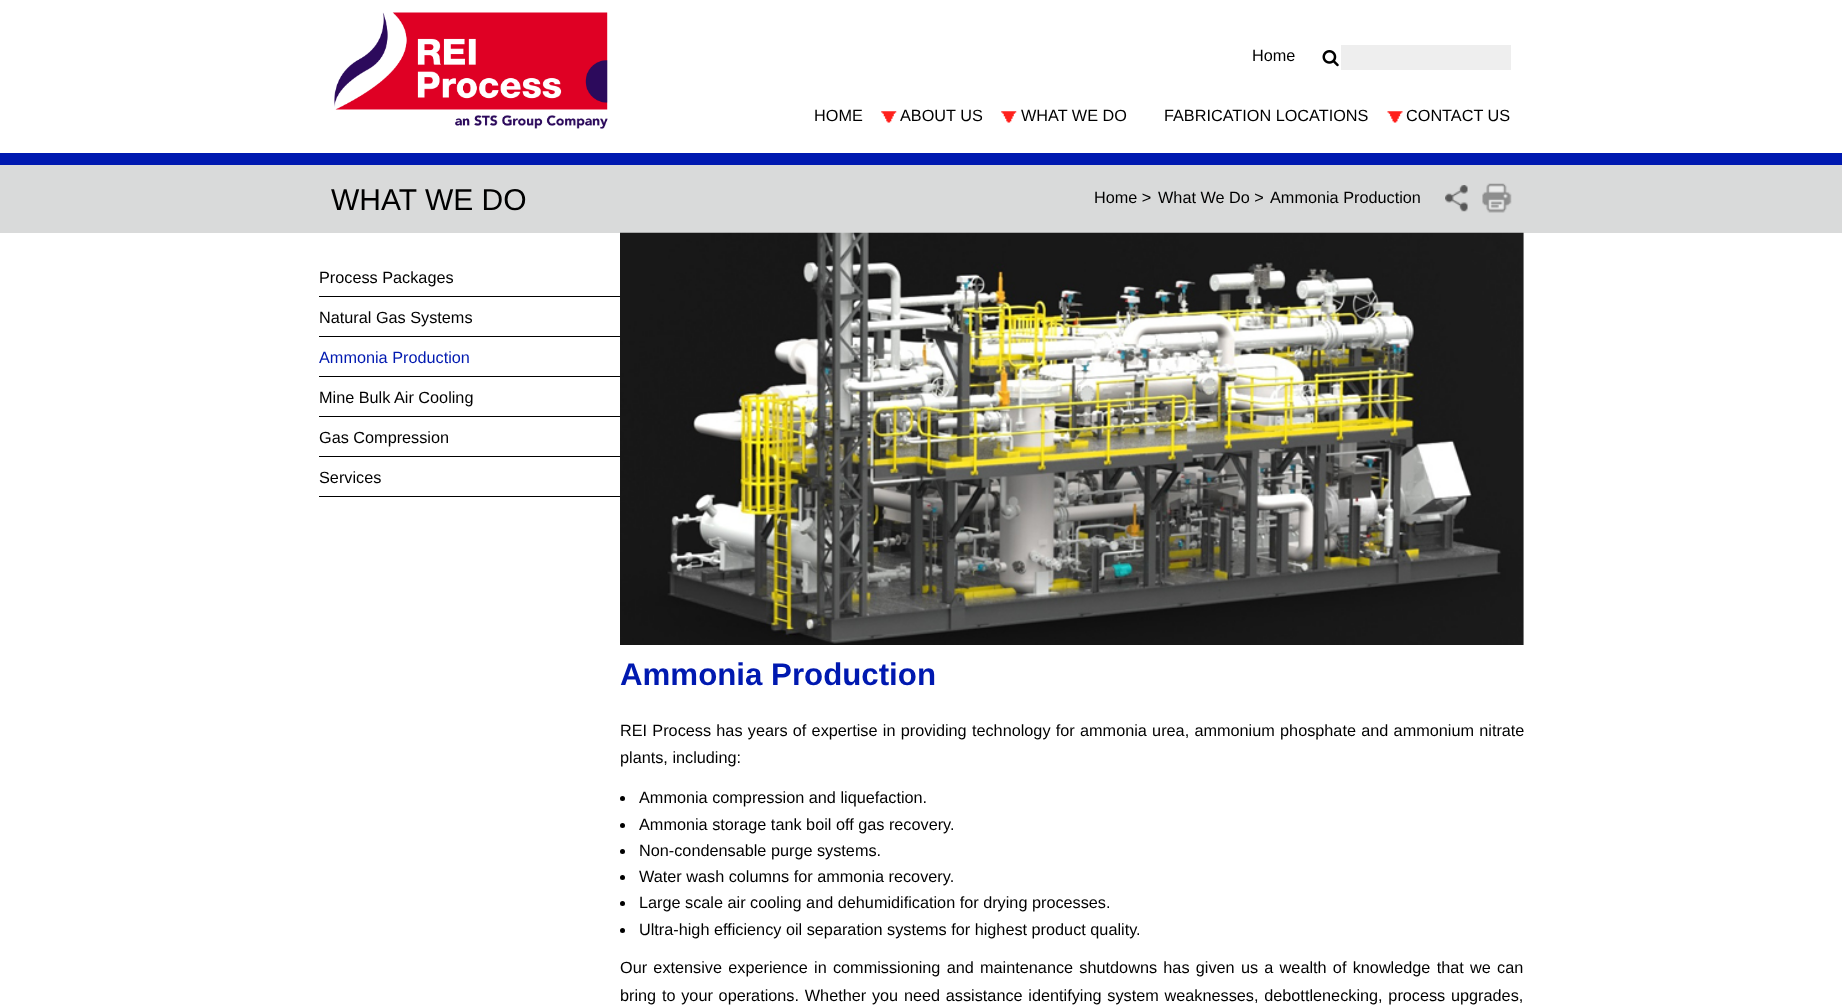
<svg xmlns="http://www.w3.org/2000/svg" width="1842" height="1007">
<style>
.a{font:16.25px Liberation Sans;fill:#000}
.b{font:30px Liberation Sans;fill:#000}
.c{font:16.25px Liberation Sans;fill:#0019b0}
.d{font:bold 31.25px Liberation Sans;fill:#0019b0}
</style>
<rect width="100%" height="100%" fill="#fff"/>
<image href="1.png" x="334" y="12" width="274" height="117"/>
<image href="2.png" x="1322" y="50" width="17" height="17"/>
<path fill="#eee" d="M1341 45h170v25H1341z"/>
<image href="3.png" x="881" y="111" width="16" height="12"/>
<image href="3.png" x="1001" y="111" width="16" height="12"/>
<image href="4.png" x="1387" y="111" width="16" height="12"/>
<path fill="#0019b0" d="M0 153h1842v12H0z"/>
<path fill="#d9dada" d="M0 165h1842v68H0z"/>
<image href="5.png" x="1445" y="185" width="23" height="27"/>
<image href="6.png" x="1482" y="183" width="30" height="30"/>
<path fill="#000" d="M319 296h301v1H319z"/>
<path fill="#000" d="M319 336h301v1H319z"/>
<path fill="#000" d="M319 376h301v1H319z"/>
<path fill="#000" d="M319 416h301v1H319z"/>
<path fill="#000" d="M319 456h301v1H319z"/>
<path fill="#000" d="M319 496h301v1H319z"/>
<image href="7.png" x="620" y="232" width="904" height="413"/>
<circle fill="#000" cx="622.5" cy="798.5" r="2.5"/>
<circle fill="#000" cx="622.5" cy="825.5" r="2.5"/>
<circle fill="#000" cx="622.5" cy="851.5" r="2.5"/>
<circle fill="#000" cx="622.5" cy="877.5" r="2.5"/>
<circle fill="#000" cx="622.5" cy="903.5" r="2.5"/>
<circle fill="#000" cx="622.5" cy="930.5" r="2.5"/>
<text class="a" x="1252" y="61">Home</text>
<text class="a" x="814" y="121">HOME</text>
<text class="a" x="900" y="121">ABOUT US</text>
<text class="a" x="1021" y="121">WHAT WE DO</text>
<text class="a" x="1164" y="121">FABRICATION LOCATIONS</text>
<text class="a" x="1406" y="121">CONTACT US</text>
<text class="b" x="331" y="210">WHAT WE DO</text>
<text class="a" x="1094" y="203">Home &gt;</text>
<text class="a" x="1158" y="203">What We Do &gt;</text>
<text class="a" x="1270" y="203">Ammonia Production</text>
<text class="a" x="319" y="283">Process Packages</text>
<text class="a" x="319" y="323">Natural Gas Systems</text>
<text class="c" x="319" y="363">Ammonia Production</text>
<text class="a" x="319" y="403">Mine Bulk Air Cooling</text>
<text class="a" x="319" y="443">Gas Compression</text>
<text class="a" x="319" y="483">Services</text>
<text class="d" x="620" y="685">Ammonia Production</text>
<text class="a" x="620" y="736" word-spacing="0.75">REI Process has years of expertise in providing technology for ammonia urea, ammonium phosphate and ammonium nitrate</text>
<text class="a" x="620" y="763">plants, including:</text>
<text class="a" x="639" y="803">Ammonia compression and liquefaction.</text>
<text class="a" x="639" y="830">Ammonia storage tank boil off gas recovery.</text>
<text class="a" x="639" y="856">Non-condensable purge systems.</text>
<text class="a" x="639" y="882">Water wash columns for ammonia recovery.</text>
<text class="a" x="639" y="908">Large scale air cooling and dehumidification for drying processes.</text>
<text class="a" x="639" y="935">Ultra-high efficiency oil separation systems for highest product quality.</text>
<text class="a" x="620" y="973" word-spacing="1.75">Our extensive experience in commissioning and maintenance shutdowns has given us a wealth of knowledge that we can</text>
<text class="a" x="620" y="1001" word-spacing="1.25">bring to your operations. Whether you need assistance identifying system weaknesses, debottlenecking, process upgrades,</text>
</svg>
